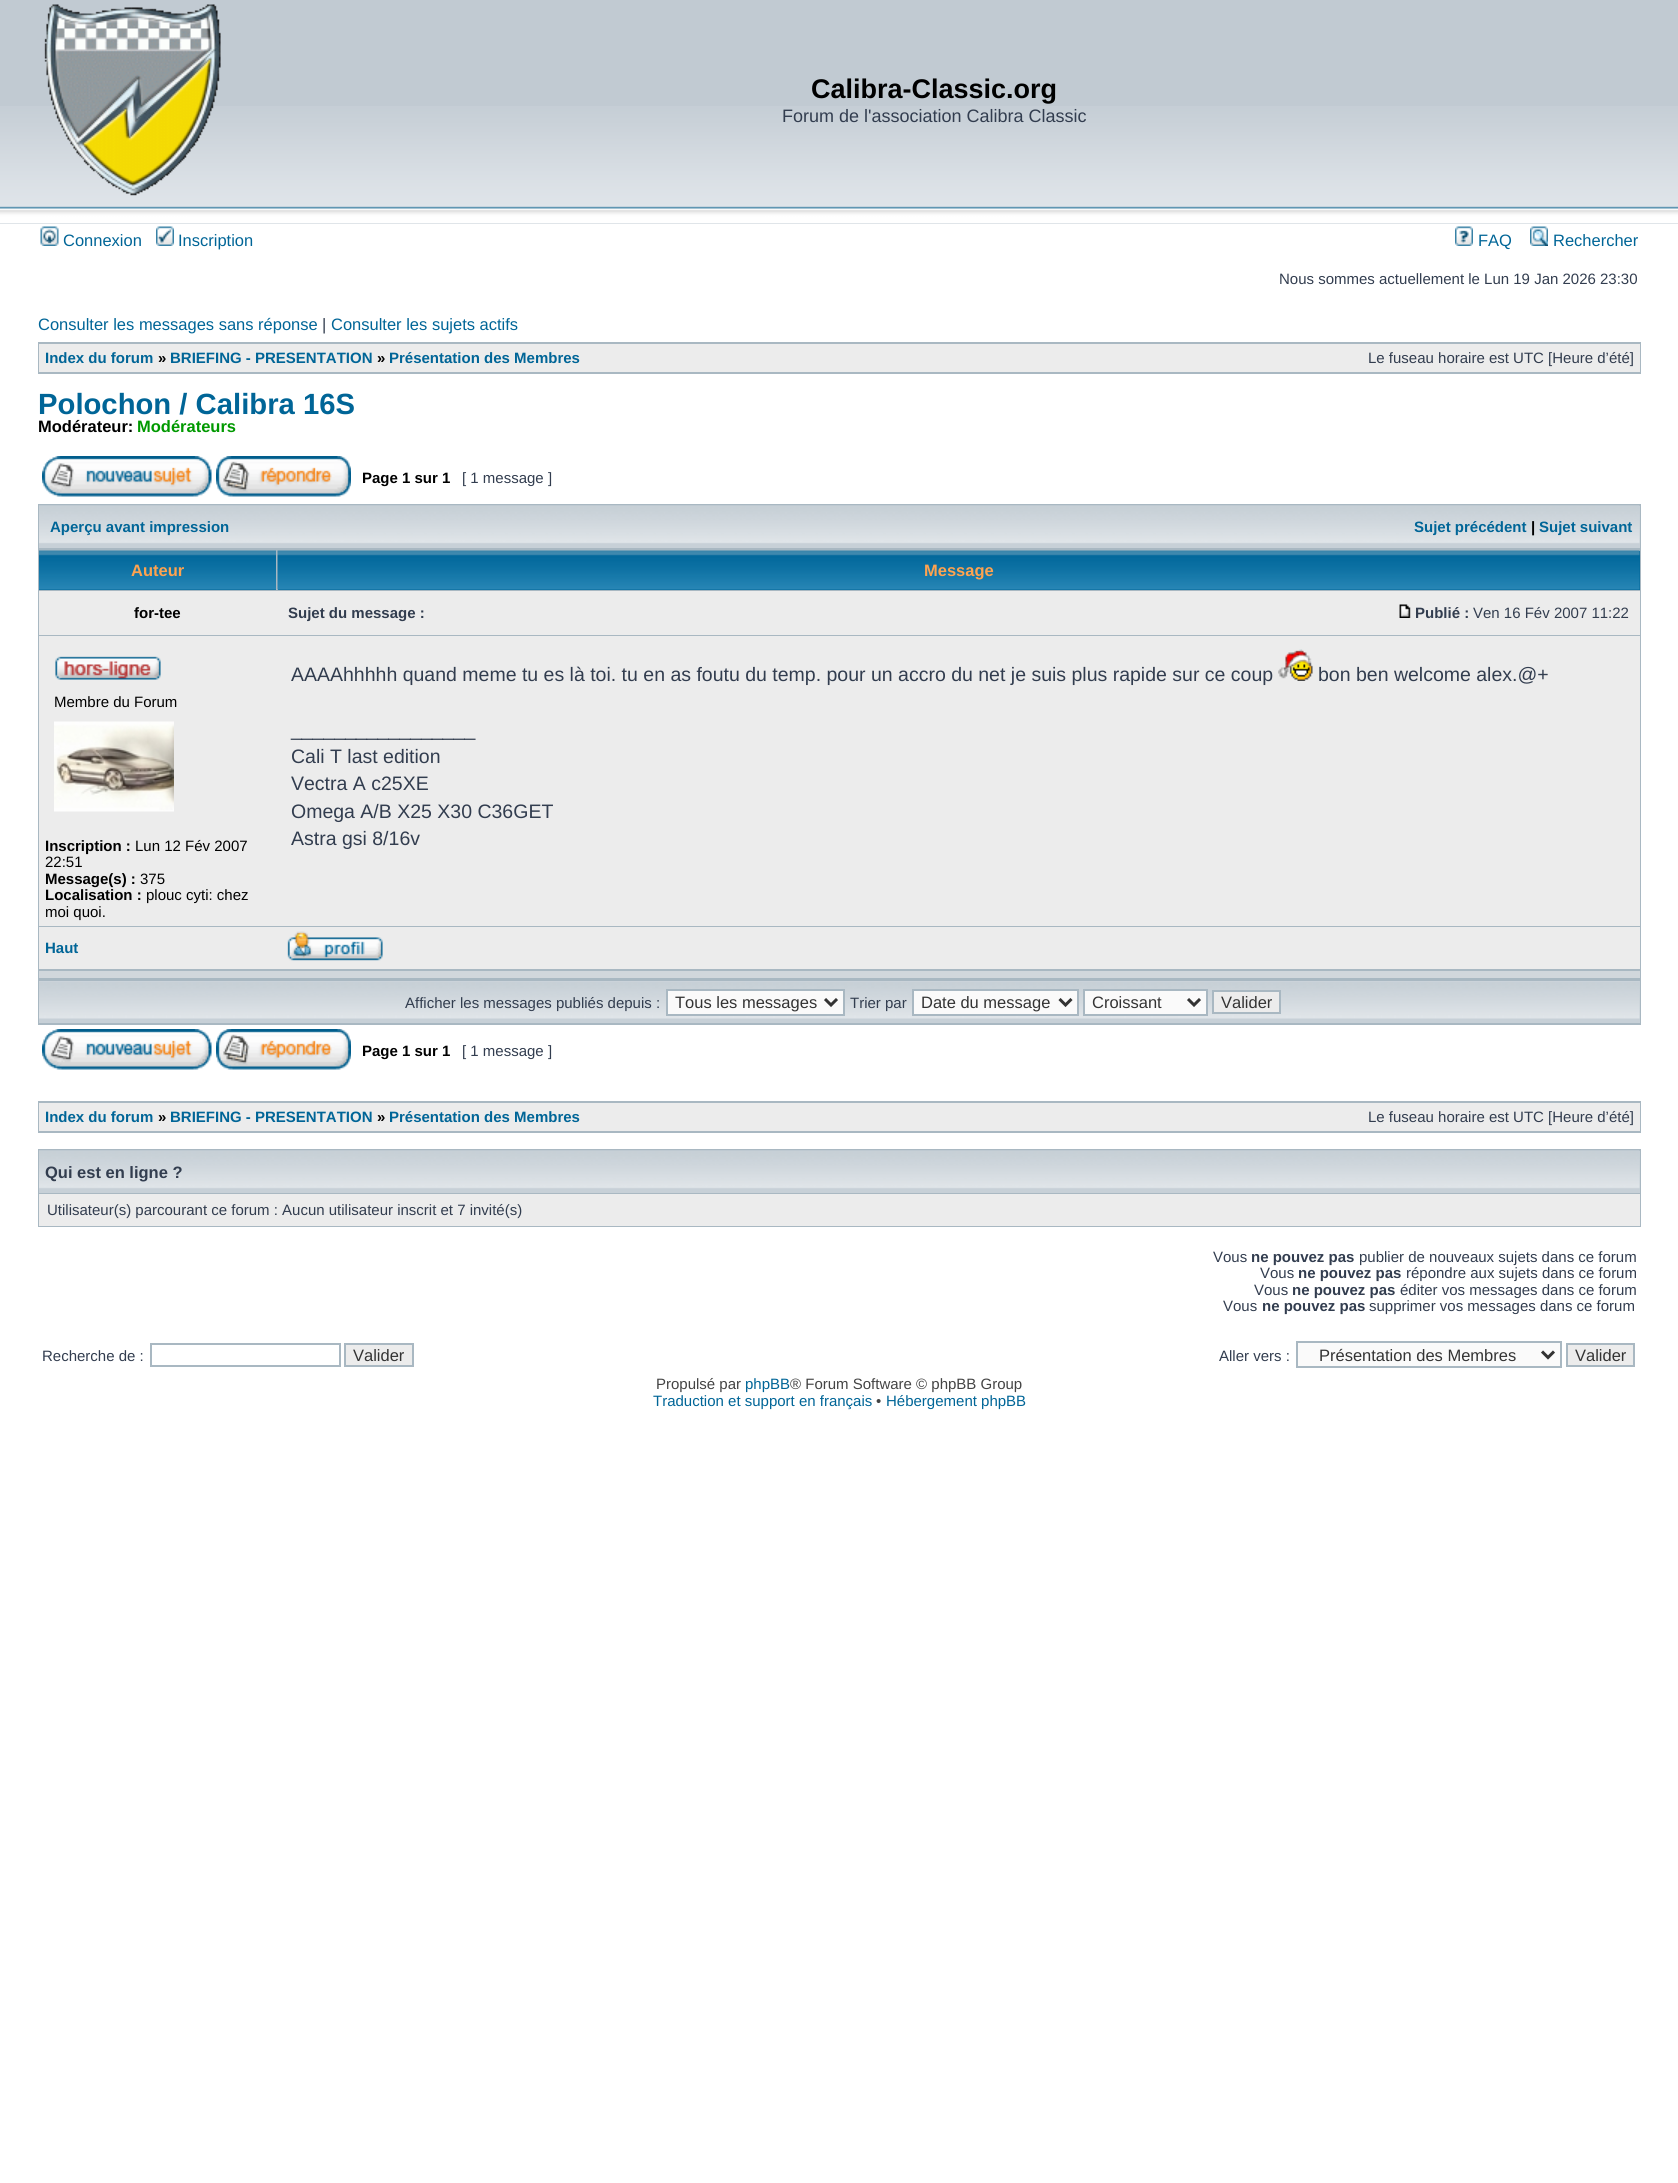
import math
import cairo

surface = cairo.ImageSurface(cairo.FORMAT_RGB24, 1678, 2183)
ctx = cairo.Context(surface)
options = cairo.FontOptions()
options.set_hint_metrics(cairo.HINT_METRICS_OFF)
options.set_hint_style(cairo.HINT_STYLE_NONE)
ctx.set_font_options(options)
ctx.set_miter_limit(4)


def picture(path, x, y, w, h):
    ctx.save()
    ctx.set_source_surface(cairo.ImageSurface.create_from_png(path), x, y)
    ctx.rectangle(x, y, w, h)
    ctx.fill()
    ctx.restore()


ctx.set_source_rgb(1, 1, 1)
ctx.paint()
ctx.set_source_rgb(0.757, 0.792, 0.824)
ctx.rectangle(0, 0, 1678, 224)
ctx.fill()
picture("img1.png", 0, 106, 1678, 118)
picture("img2.png", 44, 4, 177, 192)
ctx.select_font_face("Liberation Sans", cairo.FONT_SLANT_NORMAL, cairo.FONT_WEIGHT_BOLD)
ctx.set_font_size(27)
ctx.set_source_rgb(0, 0, 0)
ctx.move_to(811, 98)
ctx.show_text("Calibra-Classic.org")
ctx.select_font_face("Liberation Sans")
ctx.set_font_size(18)
ctx.set_source_rgb(0.196, 0.239, 0.31)
ctx.move_to(782, 122)
ctx.show_text("Forum de l'association Calibra Classic")
picture("img3.png", 40, 226, 19, 20)
ctx.set_font_size(16.5)
ctx.set_source_rgb(0, 0.396, 0.592)
ctx.move_to(63, 246)
ctx.show_text("Connexion")
picture("img4.png", 156, 226, 18, 20)
ctx.move_to(178, 246)
ctx.show_text("Inscription")
picture("img5.png", 1455, 226, 18, 20)
ctx.move_to(1478, 246)
ctx.show_text("FAQ")
picture("img6.png", 1530, 226, 18, 20)
ctx.move_to(1553, 246)
ctx.show_text("Rechercher")
ctx.set_font_size(15)
ctx.set_source_rgb(0.196, 0.239, 0.31)
ctx.move_to(1279, 284)
ctx.show_text("Nous sommes actuellement le Lun 19 Jan 2026 23:30")
ctx.set_font_size(16.5)
ctx.set_source_rgb(0, 0.396, 0.592)
ctx.move_to(38, 330)
ctx.show_text("Consulter les messages sans réponse")
ctx.set_source_rgb(0.196, 0.239, 0.31)
ctx.move_to(322, 330)
ctx.show_text("|")
ctx.set_source_rgb(0, 0.396, 0.592)
ctx.move_to(331, 330)
ctx.show_text("Consulter les sujets actifs")
ctx.set_source_rgb(0.663, 0.722, 0.761)
ctx.rectangle(38, 342, 1603, 32)
ctx.fill()
ctx.set_source_rgb(0.925, 0.925, 0.925)
ctx.rectangle(39, 344, 1601, 28)
ctx.fill()
ctx.select_font_face("Liberation Sans", cairo.FONT_SLANT_NORMAL, cairo.FONT_WEIGHT_BOLD)
ctx.set_font_size(15)
ctx.set_source_rgb(0, 0.396, 0.592)
ctx.move_to(45, 363)
ctx.show_text("Index du forum")
ctx.set_source_rgb(0, 0, 0)
ctx.move_to(158, 363)
ctx.show_text("»")
ctx.set_source_rgb(0, 0.396, 0.592)
ctx.move_to(170, 363)
ctx.show_text("BRIEFING - PRESENTATION")
ctx.set_source_rgb(0, 0, 0)
ctx.move_to(377, 363)
ctx.show_text("»")
ctx.set_source_rgb(0, 0.396, 0.592)
ctx.move_to(389, 363)
ctx.show_text("Présentation des Membres")
ctx.select_font_face("Liberation Sans")
ctx.set_source_rgb(0.196, 0.239, 0.31)
ctx.move_to(1368, 363)
ctx.show_text("Le fuseau horaire est UTC [Heure d’été]")
ctx.select_font_face("Liberation Sans", cairo.FONT_SLANT_NORMAL, cairo.FONT_WEIGHT_BOLD)
ctx.set_font_size(29.25)
ctx.set_source_rgb(0, 0.396, 0.592)
ctx.move_to(38, 414)
ctx.show_text("Polochon / Calibra 16S")
ctx.set_font_size(16.5)
ctx.set_source_rgb(0, 0, 0)
ctx.move_to(38, 432)
ctx.show_text("Modérateur:")
ctx.set_source_rgb(0, 0.6, 0)
ctx.move_to(137, 432)
ctx.show_text("Modérateurs")
picture("img7.png", 42, 456, 170, 41)
picture("img8.png", 216, 456, 135, 41)
ctx.set_font_size(15)
ctx.set_source_rgb(0, 0, 0)
ctx.move_to(362, 483)
ctx.show_text("Page 1 sur 1")
ctx.select_font_face("Liberation Sans")
ctx.set_source_rgb(0.196, 0.239, 0.31)
ctx.move_to(462, 483)
ctx.show_text("[ 1 message ]")
ctx.set_source_rgb(0.663, 0.722, 0.761)
ctx.rectangle(38, 504, 1603, 521)
ctx.fill()
ctx.set_source_rgb(0.78, 0.816, 0.843)
ctx.rectangle(39, 506, 1601, 42)
ctx.fill()
picture("img9.png", 39, 505, 1601, 39)
ctx.select_font_face("Liberation Sans", cairo.FONT_SLANT_NORMAL, cairo.FONT_WEIGHT_BOLD)
ctx.set_source_rgb(0, 0.396, 0.592)
ctx.move_to(50, 532)
ctx.show_text("Aperçu avant impression")
ctx.move_to(1414, 532)
ctx.show_text("Sujet précédent")
ctx.set_source_rgb(0, 0, 0)
ctx.move_to(1531, 532)
ctx.show_text("|")
ctx.set_source_rgb(0, 0.396, 0.592)
ctx.move_to(1539, 532)
ctx.show_text("Sujet suivant")
ctx.set_source_rgb(0, 0.4, 0.6)
ctx.rectangle(39, 589, 237, 1)
ctx.fill()
picture("img10.png", 39, 550, 237, 40)
ctx.set_font_size(16.5)
ctx.set_source_rgb(1, 0.639, 0.31)
ctx.move_to(131, 576)
ctx.show_text("Auteur")
ctx.set_source_rgb(0, 0.4, 0.6)
ctx.rectangle(278, 551, 1362, 39)
ctx.fill()
picture("img11.png", 277, 550, 1363, 40)
ctx.set_source_rgb(1, 0.639, 0.31)
ctx.move_to(924, 576)
ctx.show_text("Message")
ctx.set_source_rgb(0.925, 0.925, 0.925)
ctx.rectangle(39, 591, 1601, 44)
ctx.fill()
ctx.set_font_size(15)
ctx.set_source_rgb(0, 0, 0)
ctx.move_to(134, 618)
ctx.show_text("for-tee")
ctx.set_source_rgb(0.196, 0.239, 0.31)
ctx.move_to(288, 618)
ctx.show_text("Sujet du message :")
picture("img12.png", 1399, 604, 12, 14)
ctx.move_to(1415, 618)
ctx.show_text("Publié :")
ctx.select_font_face("Liberation Sans")
ctx.move_to(1473, 618)
ctx.show_text("Ven 16 Fév 2007 11:22")
ctx.set_source_rgb(0.925, 0.925, 0.925)
ctx.rectangle(39, 636, 1601, 290)
ctx.fill()
picture("img13.png", 55, 656, 106, 24)
ctx.set_source_rgb(0, 0, 0)
ctx.move_to(54, 707)
ctx.show_text("Membre du Forum")
picture("img14.png", 54, 721, 120, 91)
ctx.select_font_face("Liberation Sans", cairo.FONT_SLANT_NORMAL, cairo.FONT_WEIGHT_BOLD)
ctx.move_to(45, 851)
ctx.show_text("Inscription :")
ctx.select_font_face("Liberation Sans")
ctx.move_to(135, 851)
ctx.show_text("Lun 12 Fév 2007")
ctx.move_to(45, 867)
ctx.show_text("22:51")
ctx.select_font_face("Liberation Sans", cairo.FONT_SLANT_NORMAL, cairo.FONT_WEIGHT_BOLD)
ctx.move_to(45, 884)
ctx.show_text("Message(s) :")
ctx.select_font_face("Liberation Sans")
ctx.move_to(140, 884)
ctx.show_text("375")
ctx.select_font_face("Liberation Sans", cairo.FONT_SLANT_NORMAL, cairo.FONT_WEIGHT_BOLD)
ctx.move_to(45, 900)
ctx.show_text("Localisation :")
ctx.select_font_face("Liberation Sans")
ctx.move_to(146, 900)
ctx.show_text("plouc cyti: chez")
ctx.move_to(45, 917)
ctx.show_text("moi quoi.")
ctx.set_font_size(19.5)
ctx.set_source_rgb(0.196, 0.239, 0.31)
ctx.move_to(291, 681)
ctx.show_text("AAAAhhhhh quand meme tu es là toi. tu en as foutu du temp. pour un accro du net je suis plus rapide sur ce coup")
picture("img15.png", 1278, 649, 35, 32)
ctx.move_to(1318, 681)
ctx.show_text("bon ben welcome alex.@+")
ctx.move_to(291, 736)
ctx.show_text("_________________")
ctx.move_to(291, 763)
ctx.show_text("Cali T last edition")
ctx.move_to(291, 790)
ctx.show_text("Vectra A c25XE")
ctx.move_to(291, 818)
ctx.show_text("Omega A/B X25 X30 C36GET")
ctx.move_to(291, 845)
ctx.show_text("Astra gsi 8/16v")
ctx.set_source_rgb(0.925, 0.925, 0.925)
ctx.rectangle(39, 927, 1601, 42)
ctx.fill()
ctx.select_font_face("Liberation Sans", cairo.FONT_SLANT_NORMAL, cairo.FONT_WEIGHT_BOLD)
ctx.set_font_size(15)
ctx.set_source_rgb(0, 0.396, 0.592)
ctx.move_to(45, 953)
ctx.show_text("Haut")
picture("img16.png", 287, 931, 96, 30)
ctx.set_source_rgb(0.82, 0.843, 0.863)
ctx.rectangle(39, 971, 1601, 7)
ctx.fill()
ctx.set_source_rgb(0.78, 0.816, 0.843)
ctx.rectangle(39, 981, 1601, 42)
ctx.fill()
picture("img17.png", 39, 981, 1601, 38)
ctx.select_font_face("Liberation Sans")
ctx.set_source_rgb(0.196, 0.239, 0.31)
ctx.move_to(405, 1008)
ctx.show_text("Afficher les messages publiés depuis :")
ctx.set_source_rgb(0.98, 0.98, 0.98)
ctx.rectangle(667, 990, 177, 25)
ctx.fill_preserve()
ctx.set_source_rgb(0.663, 0.722, 0.761)
ctx.stroke()
ctx.new_path()
ctx.move_to(825, 999)
ctx.line_to(831, 1005)
ctx.line_to(837, 999)
ctx.set_source_rgb(0.2, 0.2, 0.2)
ctx.set_line_width(3)
ctx.stroke()
ctx.set_font_size(16.5)
ctx.move_to(675, 1008)
ctx.show_text("Tous les messages")
ctx.set_font_size(15)
ctx.set_source_rgb(0.196, 0.239, 0.31)
ctx.move_to(850, 1008)
ctx.show_text("Trier par")
ctx.set_source_rgb(0.98, 0.98, 0.98)
ctx.rectangle(913, 990, 165, 25)
ctx.fill_preserve()
ctx.set_source_rgb(0.663, 0.722, 0.761)
ctx.set_line_width(2)
ctx.stroke()
ctx.new_path()
ctx.move_to(1059.5, 999)
ctx.line_to(1065.5, 1005)
ctx.line_to(1071.5, 999)
ctx.set_source_rgb(0.2, 0.2, 0.2)
ctx.set_line_width(3)
ctx.stroke()
ctx.set_font_size(16.5)
ctx.move_to(921, 1008)
ctx.show_text("Date du message")
ctx.set_source_rgb(0.98, 0.98, 0.98)
ctx.rectangle(1084, 990, 123, 25)
ctx.fill_preserve()
ctx.set_source_rgb(0.663, 0.722, 0.761)
ctx.set_line_width(2)
ctx.stroke()
ctx.new_path()
ctx.move_to(1188, 999)
ctx.line_to(1194, 1005)
ctx.line_to(1200, 999)
ctx.set_source_rgb(0.2, 0.2, 0.2)
ctx.set_line_width(3)
ctx.stroke()
ctx.move_to(1092, 1008)
ctx.show_text("Croissant")
ctx.set_source_rgb(0.925, 0.925, 0.925)
ctx.rectangle(1213, 991, 67, 22)
ctx.fill_preserve()
ctx.set_source_rgb(0.663, 0.722, 0.761)
ctx.set_line_width(2)
ctx.stroke()
ctx.set_source_rgb(0.2, 0.2, 0.2)
ctx.move_to(1221, 1008)
ctx.show_text("Valider")
picture("img7.png", 42, 1029, 170, 41)
picture("img8.png", 216, 1029, 135, 41)
ctx.select_font_face("Liberation Sans", cairo.FONT_SLANT_NORMAL, cairo.FONT_WEIGHT_BOLD)
ctx.set_font_size(15)
ctx.set_source_rgb(0, 0, 0)
ctx.move_to(362, 1056)
ctx.show_text("Page 1 sur 1")
ctx.select_font_face("Liberation Sans")
ctx.set_source_rgb(0.196, 0.239, 0.31)
ctx.move_to(462, 1056)
ctx.show_text("[ 1 message ]")
ctx.set_source_rgb(0.663, 0.722, 0.761)
ctx.rectangle(38, 1101, 1603, 32)
ctx.fill()
ctx.set_source_rgb(0.925, 0.925, 0.925)
ctx.rectangle(39, 1103, 1601, 28)
ctx.fill()
ctx.select_font_face("Liberation Sans", cairo.FONT_SLANT_NORMAL, cairo.FONT_WEIGHT_BOLD)
ctx.set_source_rgb(0, 0.396, 0.592)
ctx.move_to(45, 1122)
ctx.show_text("Index du forum")
ctx.set_source_rgb(0, 0, 0)
ctx.move_to(158, 1122)
ctx.show_text("»")
ctx.set_source_rgb(0, 0.396, 0.592)
ctx.move_to(170, 1122)
ctx.show_text("BRIEFING - PRESENTATION")
ctx.set_source_rgb(0, 0, 0)
ctx.move_to(377, 1122)
ctx.show_text("»")
ctx.set_source_rgb(0, 0.396, 0.592)
ctx.move_to(389, 1122)
ctx.show_text("Présentation des Membres")
ctx.select_font_face("Liberation Sans")
ctx.set_source_rgb(0.196, 0.239, 0.31)
ctx.move_to(1368, 1122)
ctx.show_text("Le fuseau horaire est UTC [Heure d’été]")
ctx.set_source_rgb(0.663, 0.722, 0.761)
ctx.rectangle(38, 1149, 1603, 78)
ctx.fill()
ctx.set_source_rgb(0.78, 0.816, 0.843)
ctx.rectangle(39, 1151, 1601, 42)
ctx.fill()
picture("img9.png", 39, 1150, 1601, 39)
ctx.select_font_face("Liberation Sans", cairo.FONT_SLANT_NORMAL, cairo.FONT_WEIGHT_BOLD)
ctx.set_font_size(16.5)
ctx.set_source_rgb(0.196, 0.239, 0.31)
ctx.move_to(45, 1178)
ctx.show_text("Qui est en ligne ?")
ctx.set_source_rgb(0.925, 0.925, 0.925)
ctx.rectangle(39, 1194, 1601, 32)
ctx.fill()
ctx.select_font_face("Liberation Sans")
ctx.set_font_size(15)
ctx.set_source_rgb(0.196, 0.239, 0.31)
ctx.move_to(47, 1215)
ctx.show_text("Utilisateur(s) parcourant ce forum : Aucun utilisateur inscrit et 7 invité(s)")
ctx.move_to(1213, 1262)
ctx.show_text("Vous")
ctx.select_font_face("Liberation Sans", cairo.FONT_SLANT_NORMAL, cairo.FONT_WEIGHT_BOLD)
ctx.move_to(1251, 1262)
ctx.show_text("ne pouvez pas")
ctx.select_font_face("Liberation Sans")
ctx.move_to(1359, 1262)
ctx.show_text("publier de nouveaux sujets dans ce forum")
ctx.move_to(1260, 1278)
ctx.show_text("Vous")
ctx.select_font_face("Liberation Sans", cairo.FONT_SLANT_NORMAL, cairo.FONT_WEIGHT_BOLD)
ctx.move_to(1298, 1278)
ctx.show_text("ne pouvez pas")
ctx.select_font_face("Liberation Sans")
ctx.move_to(1406, 1278)
ctx.show_text("répondre aux sujets dans ce forum")
ctx.move_to(1254, 1295)
ctx.show_text("Vous")
ctx.select_font_face("Liberation Sans", cairo.FONT_SLANT_NORMAL, cairo.FONT_WEIGHT_BOLD)
ctx.move_to(1292, 1295)
ctx.show_text("ne pouvez pas")
ctx.select_font_face("Liberation Sans")
ctx.move_to(1400, 1295)
ctx.show_text("éditer vos messages dans ce forum")
ctx.move_to(1223, 1311)
ctx.show_text("Vous")
ctx.select_font_face("Liberation Sans", cairo.FONT_SLANT_NORMAL, cairo.FONT_WEIGHT_BOLD)
ctx.move_to(1262, 1311)
ctx.show_text("ne pouvez pas")
ctx.select_font_face("Liberation Sans")
ctx.move_to(1369, 1311)
ctx.show_text("supprimer vos messages dans ce forum")
ctx.move_to(42, 1361)
ctx.show_text("Recherche de :")
ctx.rectangle(151, 1344, 189, 22)
ctx.set_source_rgb(0.663, 0.722, 0.761)
ctx.stroke()
ctx.set_source_rgb(0.925, 0.925, 0.925)
ctx.rectangle(345, 1344, 68, 22)
ctx.fill_preserve()
ctx.set_source_rgb(0.663, 0.722, 0.761)
ctx.stroke()
ctx.set_font_size(16.5)
ctx.set_source_rgb(0.2, 0.2, 0.2)
ctx.move_to(353, 1361)
ctx.show_text("Valider")
ctx.set_font_size(15)
ctx.set_source_rgb(0.196, 0.239, 0.31)
ctx.move_to(1219, 1361)
ctx.show_text("Aller vers :")
ctx.set_source_rgb(0.98, 0.98, 0.98)
ctx.rectangle(1297, 1342, 264, 25)
ctx.fill_preserve()
ctx.set_source_rgb(0.663, 0.722, 0.761)
ctx.stroke()
ctx.new_path()
ctx.move_to(1542, 1351.5)
ctx.line_to(1548, 1357.5)
ctx.line_to(1554, 1351.5)
ctx.set_source_rgb(0.2, 0.2, 0.2)
ctx.set_line_width(3)
ctx.stroke()
ctx.set_font_size(16.5)
ctx.move_to(1319, 1361)
ctx.show_text("Présentation des Membres")
ctx.set_source_rgb(0.925, 0.925, 0.925)
ctx.rectangle(1567, 1344, 67, 22)
ctx.fill_preserve()
ctx.set_source_rgb(0.663, 0.722, 0.761)
ctx.set_line_width(2)
ctx.stroke()
ctx.set_source_rgb(0.2, 0.2, 0.2)
ctx.move_to(1575, 1361)
ctx.show_text("Valider")
ctx.set_font_size(15)
ctx.set_source_rgb(0.267, 0.267, 0.267)
ctx.move_to(656, 1389)
ctx.show_text("Propulsé par")
ctx.set_source_rgb(0, 0.396, 0.592)
ctx.move_to(745, 1389)
ctx.show_text("phpBB")
ctx.set_source_rgb(0.267, 0.267, 0.267)
ctx.move_to(790, 1389)
ctx.show_text("® Forum Software © phpBB Group")
ctx.set_source_rgb(0, 0.396, 0.592)
ctx.move_to(653, 1406)
ctx.show_text("Traduction et support en français")
ctx.set_source_rgb(0.267, 0.267, 0.267)
ctx.move_to(876, 1406)
ctx.show_text("•")
ctx.set_source_rgb(0, 0.396, 0.592)
ctx.move_to(886, 1406)
ctx.show_text("Hébergement phpBB")
surface.write_to_png("page.png")
